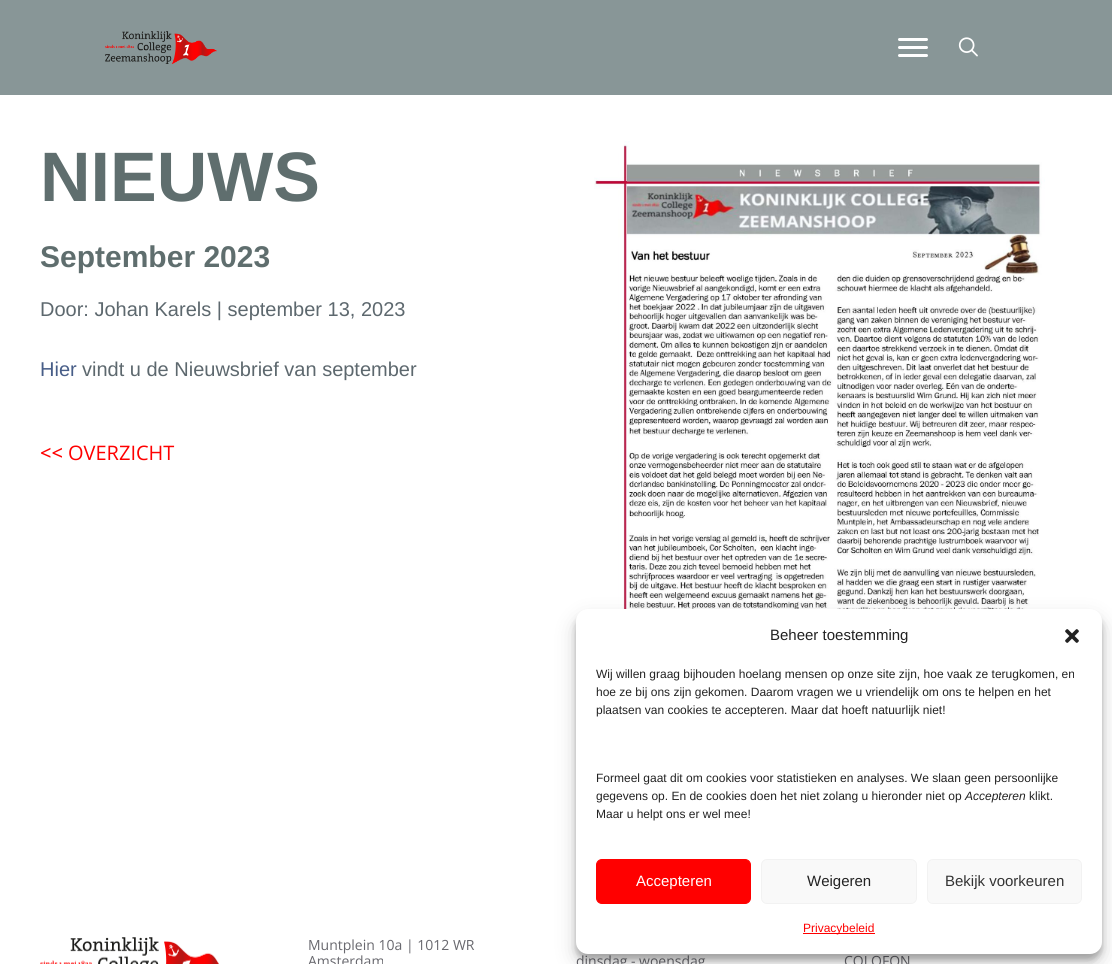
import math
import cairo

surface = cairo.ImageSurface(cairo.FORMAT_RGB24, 1112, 964)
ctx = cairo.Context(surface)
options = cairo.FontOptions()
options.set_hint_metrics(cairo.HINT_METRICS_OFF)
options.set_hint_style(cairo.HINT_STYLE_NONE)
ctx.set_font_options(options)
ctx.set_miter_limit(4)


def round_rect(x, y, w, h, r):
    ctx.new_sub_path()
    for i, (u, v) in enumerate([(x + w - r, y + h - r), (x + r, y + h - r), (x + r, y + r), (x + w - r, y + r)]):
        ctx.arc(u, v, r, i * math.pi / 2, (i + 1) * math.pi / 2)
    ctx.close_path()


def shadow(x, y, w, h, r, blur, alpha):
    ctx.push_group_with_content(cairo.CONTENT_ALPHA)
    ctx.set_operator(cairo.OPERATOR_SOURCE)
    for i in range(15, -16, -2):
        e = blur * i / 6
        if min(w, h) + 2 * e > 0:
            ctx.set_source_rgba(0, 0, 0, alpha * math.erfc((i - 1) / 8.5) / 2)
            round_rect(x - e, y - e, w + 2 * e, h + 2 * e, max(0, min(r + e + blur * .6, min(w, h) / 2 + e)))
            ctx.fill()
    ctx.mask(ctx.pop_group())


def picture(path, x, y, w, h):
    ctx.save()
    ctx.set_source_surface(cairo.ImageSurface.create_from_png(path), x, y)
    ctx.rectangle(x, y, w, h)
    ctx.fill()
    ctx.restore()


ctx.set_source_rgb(1, 1, 1)
ctx.paint()
ctx.set_source_rgb(0.533, 0.588, 0.592)
ctx.rectangle(0, 0, 1112, 95)
ctx.fill()
picture("img1.png", 105, 31, 112, 33)
ctx.set_source_rgb(1, 1, 1)
round_rect(898, 46, 30, 3, 1.5)
ctx.fill()
round_rect(898, 38, 30, 3, 1.5)
ctx.fill()
round_rect(898, 54, 30, 3, 1.5)
ctx.fill()
picture("img2.png", 958, 37, 20, 20)
ctx.select_font_face("Liberation Sans", cairo.FONT_SLANT_NORMAL, cairo.FONT_WEIGHT_BOLD)
ctx.set_font_size(70)
ctx.set_source_rgb(0.373, 0.431, 0.431)
ctx.move_to(40, 201)
ctx.show_text("NIEUWS")
ctx.set_font_size(30)
ctx.move_to(40, 267)
ctx.show_text("September 2023")
ctx.select_font_face("Liberation Sans")
ctx.set_font_size(20)
ctx.set_source_rgb(0.365, 0.408, 0.431)
ctx.move_to(40, 316)
ctx.show_text("Door: Johan Karels | september 13, 2023")
ctx.set_source_rgb(0.282, 0.369, 0.533)
ctx.move_to(40, 376)
ctx.show_text("Hier")
ctx.set_source_rgb(0.365, 0.408, 0.431)
ctx.move_to(82, 376)
ctx.show_text("vindt u de Nieuwsbrief van september")
ctx.select_font_face("Open Sans Medium")
ctx.set_source_rgb(1, 0, 0)
ctx.move_to(40, 460)
ctx.show_text("<<")
ctx.select_font_face("Open Sans")
ctx.move_to(68, 460)
ctx.show_text("OVERZICHT")
picture("img3.png", 594, 141, 451, 468)
picture("img4.png", 40, 937, 179, 27)
ctx.set_font_size(14)
ctx.set_source_rgb(0.408, 0.408, 0.431)
ctx.move_to(308, 950)
ctx.show_text("Muntplein 10a | 1012 WR")
ctx.move_to(308, 966)
ctx.show_text("Amsterdam")
ctx.move_to(576, 966)
ctx.show_text("dinsdag - woensdag")
ctx.move_to(844, 966)
ctx.show_text("COLOFON")
ctx.set_source_rgb(0, 0, 0)
shadow(576, 615, 526, 345, 12, 3, 0.23)
shadow(576, 619, 526, 345, 12, 10, 0.19)
ctx.set_source_rgb(1, 1, 1)
round_rect(576, 609, 526, 345, 12)
ctx.fill()
ctx.select_font_face("Liberation Sans")
ctx.set_font_size(15)
ctx.set_source_rgb(0.133, 0.133, 0.133)
ctx.move_to(770, 640)
ctx.show_text("Beheer toestemming")
picture("img5.png", 1065, 629, 14, 14)
ctx.set_font_size(12)
ctx.move_to(596, 678)
ctx.show_text("Wij willen graag bijhouden hoelang mensen op onze site zijn, hoe vaak ze terugkomen, en")
ctx.move_to(596, 696)
ctx.show_text("hoe ze bij ons zijn gekomen. Daarom vragen we u vriendelijk om ons te helpen en het")
ctx.move_to(596, 714)
ctx.show_text("plaatsen van cookies te accepteren. Maar dat hoeft natuurlijk niet!")
ctx.move_to(596, 782)
ctx.show_text("Formeel gaat dit om cookies voor statistieken en analyses. We slaan geen persoonlijke")
ctx.move_to(596, 800)
ctx.show_text("gegevens op. En de cookies doen het niet zolang u hieronder niet op")
ctx.select_font_face("Liberation Sans", cairo.FONT_SLANT_ITALIC)
ctx.move_to(965, 800)
ctx.show_text("Accepteren")
ctx.select_font_face("Liberation Sans")
ctx.move_to(1029, 800)
ctx.show_text("klikt.")
ctx.move_to(596, 818)
ctx.show_text("Maar u helpt ons er wel mee!")
ctx.set_source_rgb(1, 0, 0)
round_rect(596.5, 859.5, 154, 44, 5.5)
ctx.fill_preserve()
ctx.set_line_width(1)
ctx.stroke()
ctx.set_font_size(15)
ctx.set_source_rgb(1, 1, 1)
ctx.move_to(636, 886)
ctx.show_text("Accepteren")
ctx.set_source_rgb(0.976, 0.976, 0.976)
round_rect(761.5, 859.5, 155, 44, 5.5)
ctx.fill_preserve()
ctx.set_source_rgb(0.949, 0.949, 0.949)
ctx.stroke()
ctx.set_source_rgb(0.133, 0.133, 0.133)
ctx.move_to(807, 886)
ctx.show_text("Weigeren")
ctx.set_source_rgb(0.976, 0.976, 0.976)
round_rect(927.5, 859.5, 154, 44, 5.5)
ctx.fill_preserve()
ctx.set_source_rgb(0.949, 0.949, 0.949)
ctx.stroke()
ctx.set_source_rgb(0.2, 0.2, 0.2)
ctx.move_to(945, 886)
ctx.show_text("Bekijk voorkeuren")
ctx.set_source_rgb(1, 0, 0)
ctx.rectangle(803, 933, 72, 1)
ctx.fill()
ctx.set_font_size(12)
ctx.move_to(803, 932)
ctx.show_text("Privacybeleid")
surface.write_to_png("page.png")
